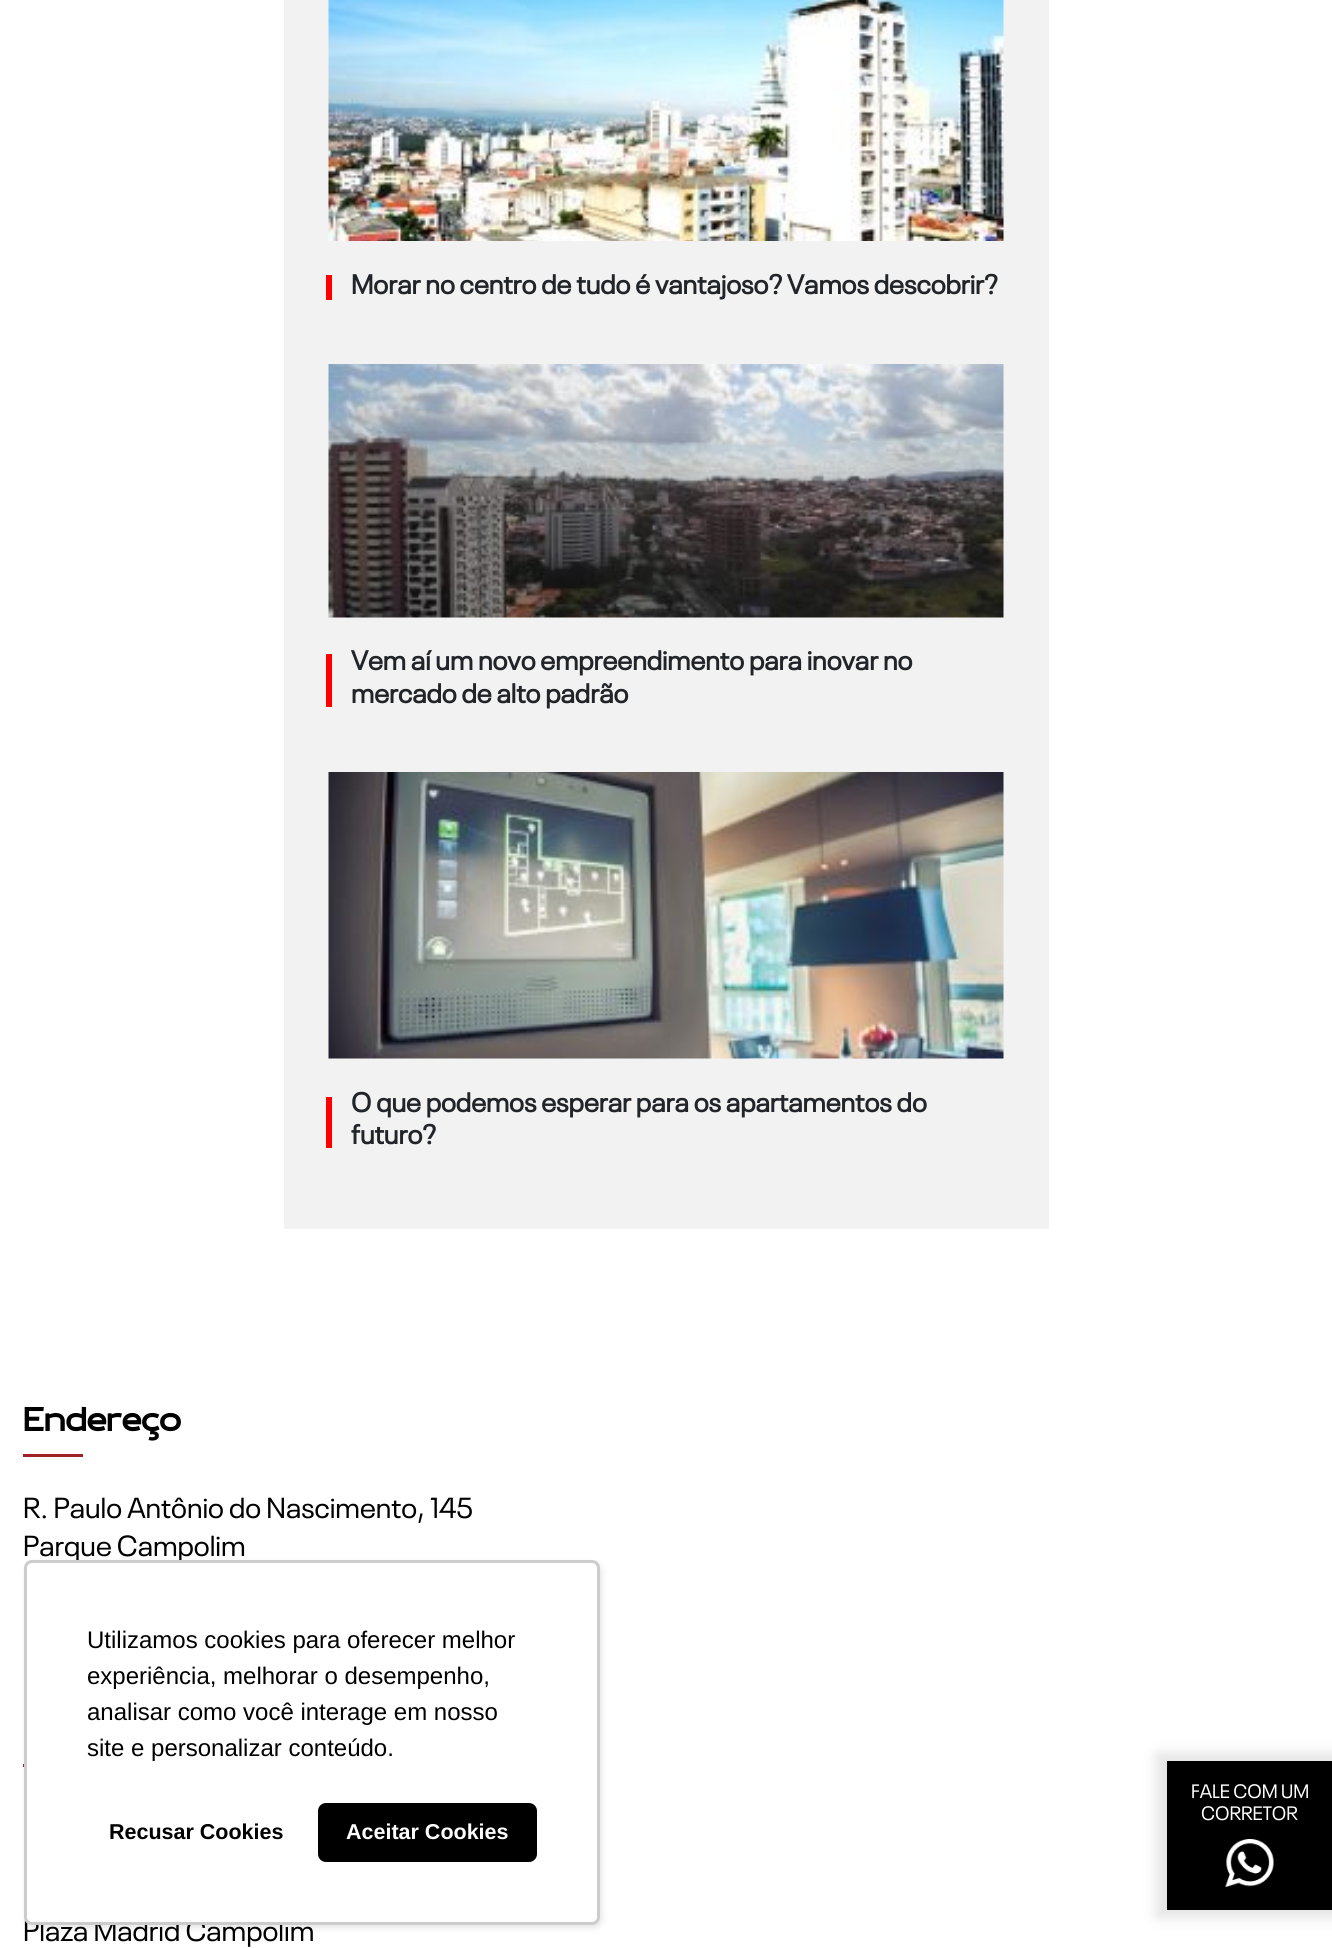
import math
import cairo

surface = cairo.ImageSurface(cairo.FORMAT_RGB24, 1332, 1948)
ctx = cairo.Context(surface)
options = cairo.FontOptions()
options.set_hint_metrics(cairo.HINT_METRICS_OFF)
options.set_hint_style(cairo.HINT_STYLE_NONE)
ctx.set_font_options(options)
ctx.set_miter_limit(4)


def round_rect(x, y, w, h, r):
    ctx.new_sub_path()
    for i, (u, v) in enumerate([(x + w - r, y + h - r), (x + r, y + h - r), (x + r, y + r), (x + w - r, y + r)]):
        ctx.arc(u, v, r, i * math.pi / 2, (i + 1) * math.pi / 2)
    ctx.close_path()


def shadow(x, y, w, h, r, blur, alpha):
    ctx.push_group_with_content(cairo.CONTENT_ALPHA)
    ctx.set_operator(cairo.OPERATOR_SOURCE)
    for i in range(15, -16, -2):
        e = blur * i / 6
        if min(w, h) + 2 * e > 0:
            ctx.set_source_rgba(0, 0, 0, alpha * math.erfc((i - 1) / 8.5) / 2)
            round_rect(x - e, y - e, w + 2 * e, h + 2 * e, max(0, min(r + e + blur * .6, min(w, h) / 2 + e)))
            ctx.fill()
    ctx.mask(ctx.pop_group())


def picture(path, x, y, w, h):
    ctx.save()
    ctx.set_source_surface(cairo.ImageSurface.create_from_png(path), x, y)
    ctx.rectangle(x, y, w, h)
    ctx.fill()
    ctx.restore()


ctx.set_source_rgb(1, 1, 1)
ctx.paint()
ctx.set_source_rgb(0.949, 0.949, 0.949)
ctx.rectangle(284, 0, 765, 1229)
ctx.fill()
picture("img1.png", 328, 0, 676, 241)
ctx.set_source_rgb(1, 0, 0)
ctx.rectangle(326, 275, 6, 25)
ctx.fill()
ctx.select_font_face("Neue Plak", cairo.FONT_SLANT_NORMAL, cairo.FONT_WEIGHT_BOLD)
ctx.set_font_size(27)
ctx.set_source_rgb(0.129, 0.145, 0.161)
ctx.move_to(351, 294)
ctx.show_text("Morar no centro de tudo é vantajoso? Vamos descobrir?")
picture("img2.png", 328, 364, 676, 254)
ctx.set_source_rgb(1, 0, 0)
ctx.rectangle(326, 654, 6, 53)
ctx.fill()
ctx.set_source_rgb(0.129, 0.145, 0.161)
ctx.move_to(351, 670)
ctx.show_text("Vem aí um novo empreendimento para inovar no")
ctx.move_to(351, 703)
ctx.show_text("mercado de alto padrão")
picture("img3.png", 328, 772, 676, 287)
ctx.set_source_rgb(1, 0, 0)
ctx.rectangle(326, 1097, 6, 51)
ctx.fill()
ctx.set_source_rgb(0.129, 0.145, 0.161)
ctx.move_to(351, 1112)
ctx.show_text("O que podemos esperar para os apartamentos do")
ctx.move_to(351, 1144)
ctx.show_text("futuro?")
ctx.select_font_face("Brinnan", cairo.FONT_SLANT_NORMAL, cairo.FONT_WEIGHT_BOLD)
ctx.set_font_size(33.5)
ctx.set_source_rgb(0, 0, 0)
ctx.move_to(23, 1431)
ctx.show_text("Endereço")
ctx.set_source_rgb(0.624, 0.137, 0.145)
ctx.rectangle(23, 1454, 60, 3)
ctx.fill()
ctx.select_font_face("Neue Plak")
ctx.set_font_size(28.75)
ctx.set_source_rgb(0, 0, 0)
ctx.move_to(23, 1518)
ctx.show_text("R. Paulo Antônio do Nascimento, 145")
ctx.move_to(23, 1556)
ctx.show_text("Parque Campolim")
ctx.set_source_rgb(0.624, 0.137, 0.145)
ctx.rectangle(23, 1764, 1, 3)
ctx.fill()
ctx.set_source_rgb(0, 0, 0)
ctx.move_to(23, 1941)
ctx.show_text("Plaza Madrid Campolim")
ctx.set_source_rgb(0, 0, 0)
shadow(26, 1563, 576, 365, 8, 3, 0.1)
ctx.set_source_rgb(1, 1, 1)
round_rect(24, 1560, 576, 365, 8)
ctx.fill()
round_rect(25.5, 1561.5, 573, 362, 6.5)
ctx.set_source_rgba(0, 0, 0, 0.2)
ctx.set_line_width(3)
ctx.stroke()
ctx.select_font_face("Liberation Sans")
ctx.set_font_size(24)
ctx.set_source_rgb(0, 0, 0)
ctx.move_to(87, 1648)
ctx.show_text("Utilizamos cookies para oferecer melhor")
ctx.move_to(87, 1684)
ctx.show_text("experiência, melhorar o desempenho,")
ctx.move_to(87, 1720)
ctx.show_text("analisar como você interage em nosso")
ctx.move_to(87, 1756)
ctx.show_text("site e personalizar conteúdo.")
ctx.select_font_face("Liberation Sans", cairo.FONT_SLANT_NORMAL, cairo.FONT_WEIGHT_BOLD)
ctx.set_font_size(21.5)
ctx.move_to(109, 1839)
ctx.show_text("Recusar Cookies")
round_rect(318, 1803, 219, 59, 8)
ctx.fill()
ctx.set_source_rgb(1, 1, 1)
ctx.move_to(346, 1839)
ctx.show_text("Aceitar Cookies")
ctx.set_source_rgb(0, 0, 0)
shadow(1157, 1754, 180, 163, 0, 7.5, 0.12)
ctx.set_source_rgb(0, 0, 0)
ctx.rectangle(1167, 1761, 165, 149)
ctx.fill()
ctx.select_font_face("Neue Plak")
ctx.set_font_size(19.25)
ctx.set_source_rgb(1, 1, 1)
ctx.move_to(1191, 1798)
ctx.show_text("FALE COM UM")
ctx.move_to(1201, 1820)
ctx.show_text("CORRETOR")
picture("img4.png", 1225, 1839, 49, 48)
surface.write_to_png("page.png")
